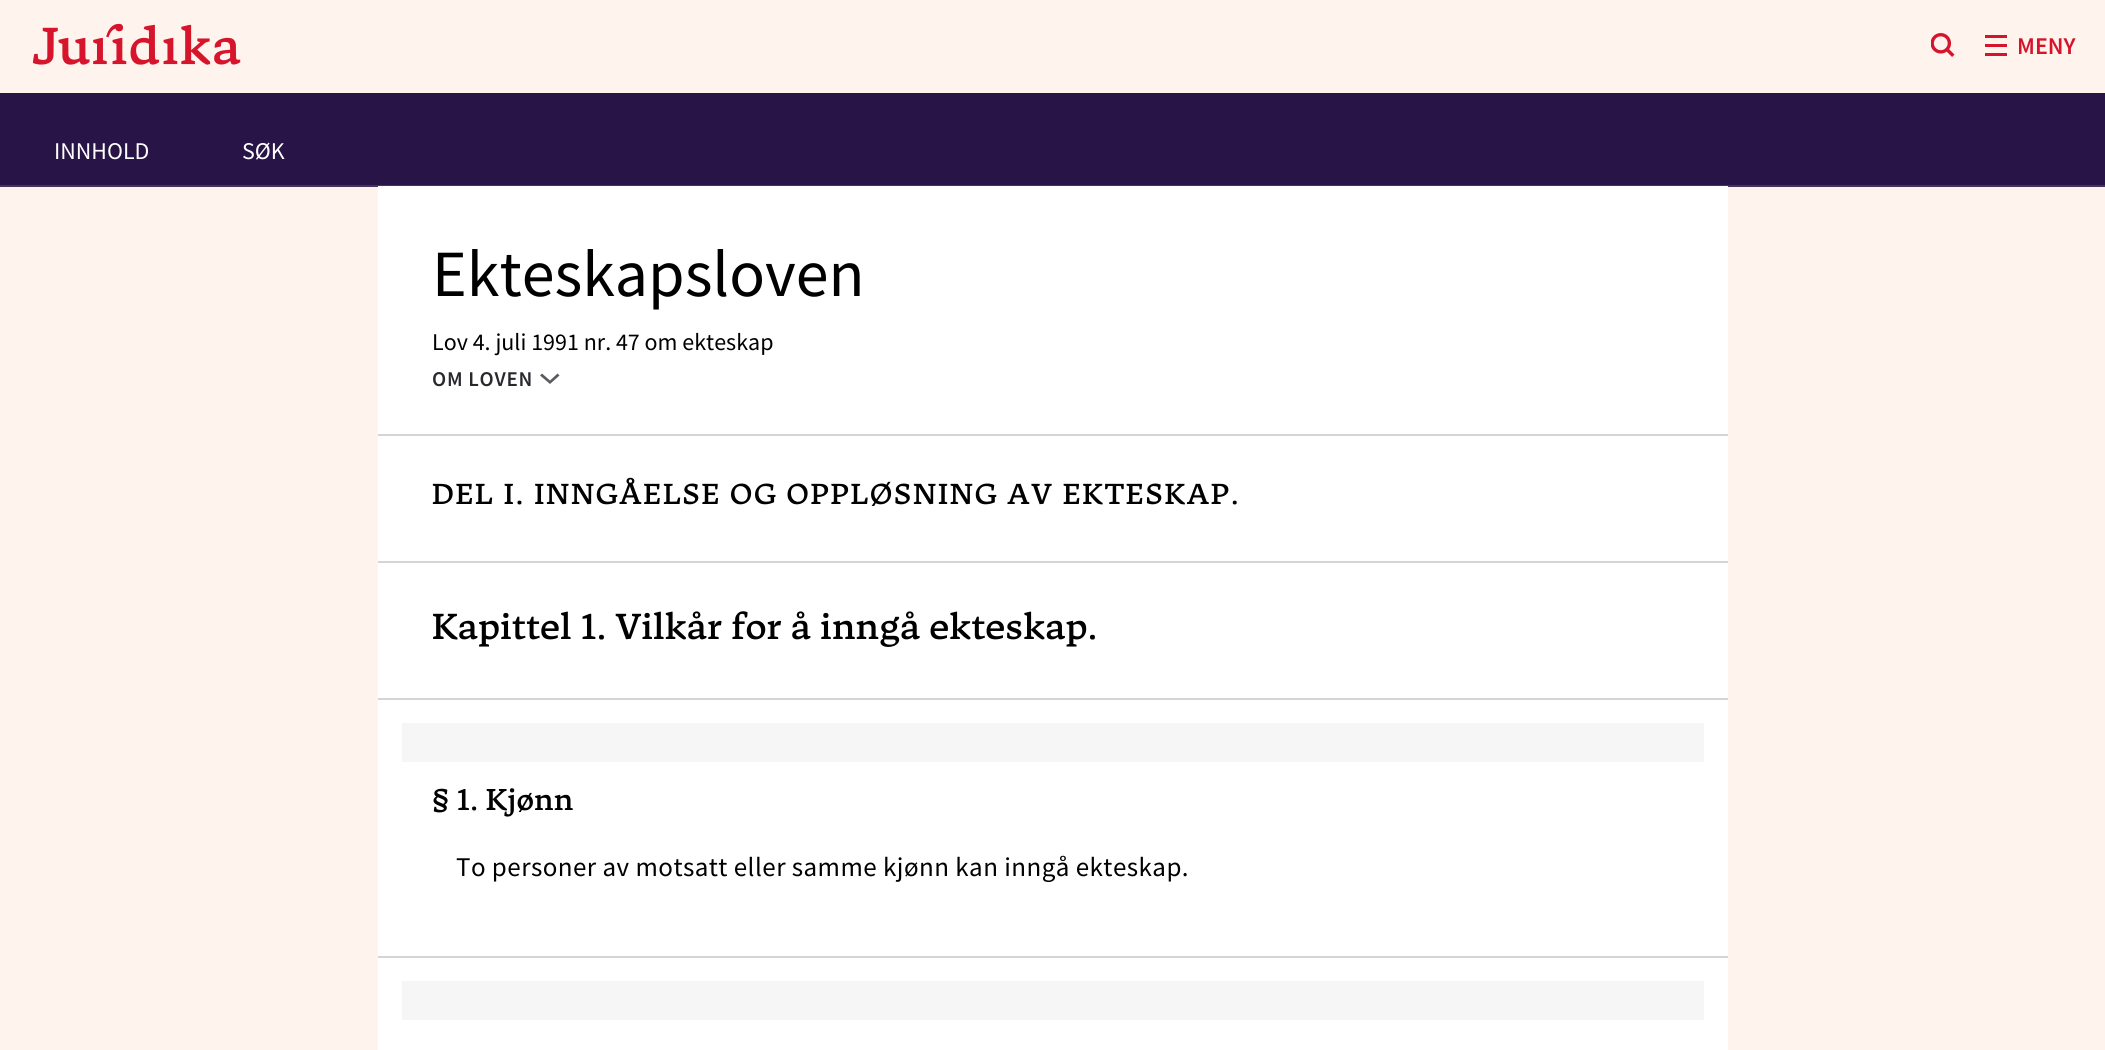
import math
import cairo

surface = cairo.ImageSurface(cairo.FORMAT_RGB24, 2105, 1050)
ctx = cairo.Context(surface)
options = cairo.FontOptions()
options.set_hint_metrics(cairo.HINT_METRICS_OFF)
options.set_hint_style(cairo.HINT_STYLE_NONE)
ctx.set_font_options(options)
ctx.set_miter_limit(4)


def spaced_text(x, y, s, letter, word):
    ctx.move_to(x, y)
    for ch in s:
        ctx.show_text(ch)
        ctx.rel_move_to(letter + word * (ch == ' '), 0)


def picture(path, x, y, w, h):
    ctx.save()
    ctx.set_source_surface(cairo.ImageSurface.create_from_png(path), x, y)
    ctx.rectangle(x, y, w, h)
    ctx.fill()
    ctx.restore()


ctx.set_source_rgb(1, 0.953, 0.929)
ctx.paint()
picture("img1.png", 32, 23, 209, 42)
picture("img2.png", 1931, 33, 24, 24)
ctx.set_source_rgb(0.839, 0.078, 0.169)
ctx.rectangle(1985, 35, 22, 3)
ctx.fill()
ctx.rectangle(1985, 44, 22, 3)
ctx.fill()
ctx.rectangle(1985, 53, 22, 3)
ctx.fill()
ctx.select_font_face("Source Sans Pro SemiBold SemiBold")
ctx.set_font_size(24)
ctx.move_to(2017, 54)
ctx.show_text("MENY")
ctx.set_source_rgb(0.161, 0.082, 0.278)
ctx.rectangle(0, 93, 2105, 92)
ctx.fill()
ctx.set_source_rgb(0.275, 0.204, 0.376)
ctx.rectangle(0, 185, 2105, 2)
ctx.fill()
ctx.select_font_face("Source Sans Pro")
ctx.set_source_rgb(1, 1, 1)
ctx.move_to(54, 159)
ctx.show_text("INNHOLD")
ctx.move_to(242, 159)
ctx.show_text("SØK")
ctx.rectangle(378, 186, 1350, 864)
ctx.fill()
ctx.set_source_rgb(0.839, 0.835, 0.839)
ctx.rectangle(378, 434, 1350, 2)
ctx.fill()
ctx.set_font_size(66)
ctx.set_source_rgb(0, 0, 0)
ctx.move_to(432, 296)
ctx.show_text("Ekteskapsloven")
ctx.set_font_size(24)
ctx.move_to(432, 350)
ctx.show_text("Lov 4. juli 1991 nr. 47 om ekteskap")
ctx.select_font_face("Source Sans Pro SemiBold SemiBold")
ctx.set_font_size(21)
ctx.set_source_rgb(0.161, 0.157, 0.18)
spaced_text(432, 386, "OM LOVEN", 0.75, 0)
ctx.set_source_rgb(0.361, 0.357, 0.373)
ctx.set_fill_rule(cairo.FILL_RULE_EVEN_ODD)
ctx.new_path()
ctx.move_to(559.5, 375.5)
ctx.line_to(550, 384)
ctx.line_to(540, 375.5)
ctx.line_to(542, 373.5)
ctx.line_to(550, 380.5)
ctx.line_to(557.5, 373.5)
ctx.close_path()
ctx.fill()
ctx.set_source_rgb(0.839, 0.835, 0.839)
ctx.rectangle(378, 561, 1350, 2)
ctx.fill()
ctx.select_font_face("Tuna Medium")
ctx.set_font_size(28.8)
ctx.set_source_rgb(0, 0, 0)
spaced_text(432, 504, "DEL I. INNGÅELSE OG OPPLØSNING AV EKTESKAP.", 1.8, 0)
ctx.set_source_rgb(0.839, 0.835, 0.839)
ctx.rectangle(378, 698, 1350, 2)
ctx.fill()
ctx.set_font_size(36)
ctx.set_source_rgb(0, 0, 0)
ctx.move_to(432, 639)
ctx.show_text("Kapittel 1. Vilkår for å inngå ekteskap.")
ctx.set_source_rgb(0.839, 0.835, 0.839)
ctx.rectangle(378, 956, 1350, 2)
ctx.fill()
ctx.set_source_rgb(0.961, 0.961, 0.961)
ctx.rectangle(402, 723, 1302, 39)
ctx.fill()
ctx.set_font_size(30)
ctx.set_source_rgb(0, 0, 0)
ctx.move_to(432, 810)
ctx.show_text("§ 1. Kjønn")
ctx.select_font_face("Source Sans Pro")
ctx.set_font_size(27)
spaced_text(456, 876, "To personer av motsatt eller samme kjønn kan inngå ekteskap.", 0.45, 0)
ctx.set_source_rgb(0.961, 0.961, 0.961)
ctx.rectangle(402, 981, 1302, 39)
ctx.fill()
surface.write_to_png("page.png")
